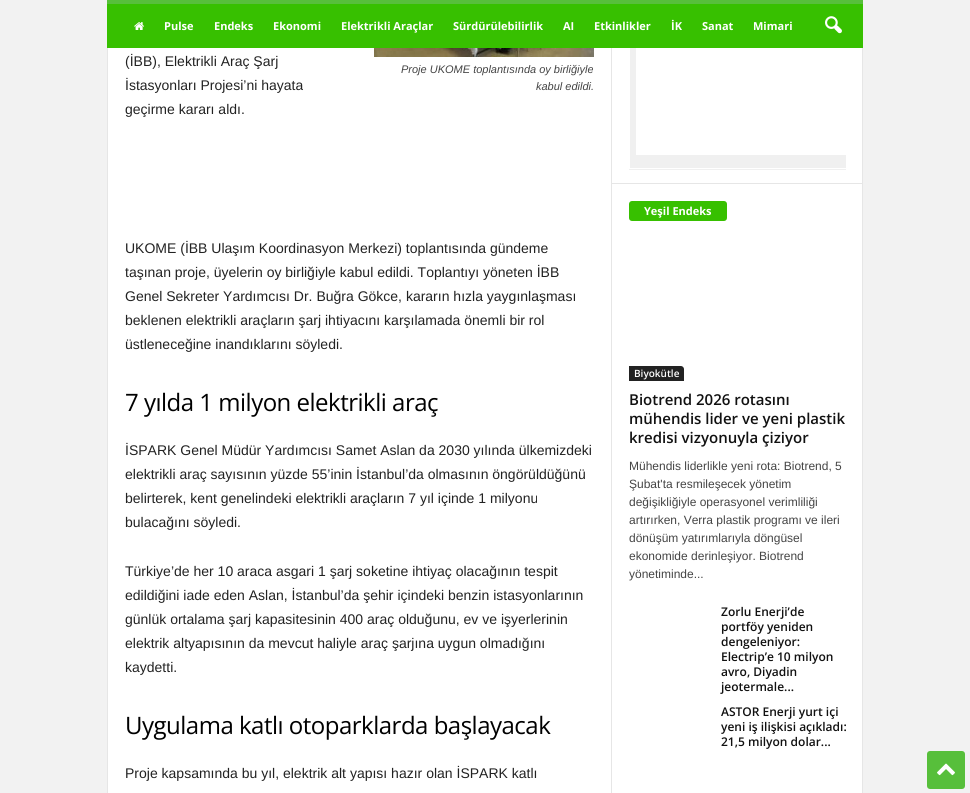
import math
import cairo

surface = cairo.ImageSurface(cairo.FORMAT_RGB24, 970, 793)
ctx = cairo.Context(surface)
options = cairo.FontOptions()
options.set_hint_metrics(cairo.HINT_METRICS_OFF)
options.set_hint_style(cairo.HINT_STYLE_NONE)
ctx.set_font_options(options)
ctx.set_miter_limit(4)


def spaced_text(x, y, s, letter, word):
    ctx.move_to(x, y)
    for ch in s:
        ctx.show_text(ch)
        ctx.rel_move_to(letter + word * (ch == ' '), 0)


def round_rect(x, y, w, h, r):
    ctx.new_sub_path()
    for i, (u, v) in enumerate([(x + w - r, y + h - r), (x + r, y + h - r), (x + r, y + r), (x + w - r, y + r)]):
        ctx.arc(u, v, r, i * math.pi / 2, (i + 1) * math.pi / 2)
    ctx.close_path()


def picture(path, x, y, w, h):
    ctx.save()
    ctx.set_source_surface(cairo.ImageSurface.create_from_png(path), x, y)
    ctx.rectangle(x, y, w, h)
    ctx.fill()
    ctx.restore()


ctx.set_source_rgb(0.949, 0.949, 0.949)
ctx.paint()
ctx.set_source_rgb(0.216, 0.753, 0)
ctx.rectangle(107, 4, 756, 44)
ctx.fill()
ctx.set_source_rgb(0.341, 0.749, 0.231)
ctx.rectangle(107, 0, 756, 4)
ctx.fill()
picture("img1.png", 134, 22, 10, 8)
ctx.select_font_face("Open Sans", cairo.FONT_SLANT_NORMAL, cairo.FONT_WEIGHT_BOLD)
ctx.set_font_size(11)
ctx.set_source_rgb(1, 1, 1)
ctx.move_to(164, 30)
ctx.show_text("Pulse")
ctx.move_to(214, 30)
ctx.show_text("Endeks")
ctx.move_to(273, 30)
ctx.show_text("Ekonomi")
ctx.move_to(341, 30)
ctx.show_text("Elektrikli Araçlar")
ctx.move_to(453, 30)
ctx.show_text("Sürdürülebilirlik")
ctx.move_to(563, 30)
ctx.show_text("AI")
ctx.move_to(594, 30)
ctx.show_text("Etkinlikler")
ctx.move_to(671, 30)
ctx.show_text("İK")
ctx.move_to(702, 30)
ctx.show_text("Sanat")
ctx.move_to(753, 30)
ctx.show_text("Mimari")
picture("img2.png", 825, 16, 17, 18)
ctx.rectangle(108, 48, 754, 745)
ctx.fill()
ctx.set_source_rgb(0.902, 0.902, 0.902)
ctx.rectangle(107, 48, 1, 745)
ctx.fill()
ctx.select_font_face("Liberation Sans")
ctx.set_font_size(14)
ctx.set_source_rgb(0.133, 0.133, 0.133)
ctx.move_to(125, 66)
ctx.show_text("(İBB), Elektrikli Araç Şarj")
ctx.move_to(125, 90)
ctx.show_text("İstasyonları Projesi’ni hayata")
ctx.move_to(125, 114)
ctx.show_text("geçirme kararı aldı.")
picture("img3.png", 374, 48, 220, 9)
ctx.select_font_face("Liberation Sans", cairo.FONT_SLANT_ITALIC)
ctx.set_font_size(11)
ctx.set_source_rgb(0.267, 0.267, 0.267)
ctx.move_to(401, 73)
ctx.show_text("Proje UKOME toplantısında oy birliğiyle")
ctx.move_to(536, 90)
ctx.show_text("kabul edildi.")
ctx.select_font_face("Liberation Sans")
ctx.set_font_size(14)
ctx.set_source_rgb(0.133, 0.133, 0.133)
ctx.move_to(125, 253)
ctx.show_text("UKOME (İBB Ulaşım Koordinasyon Merkezi) toplantısında gündeme")
ctx.move_to(125, 277)
ctx.show_text("taşınan proje, üyelerin oy birliğiyle kabul edildi. Toplantıyı yöneten İBB")
ctx.move_to(125, 301)
ctx.show_text("Genel Sekreter Yardımcısı Dr. Buğra Gökce, kararın hızla yaygınlaşması")
ctx.move_to(125, 325)
ctx.show_text("beklenen elektrikli araçların şarj ihtiyacını karşılamada önemli bir rol")
ctx.move_to(125, 349)
ctx.show_text("üstleneceğine inandıklarını söyledi.")
ctx.select_font_face("Open Sans")
ctx.set_font_size(24)
ctx.set_source_rgb(0, 0, 0)
spaced_text(125, 411, "7 yılda 1 milyon elektrikli araç", -0.5, 0)
ctx.select_font_face("Liberation Sans")
ctx.set_font_size(14)
ctx.set_source_rgb(0.133, 0.133, 0.133)
ctx.move_to(125, 455)
ctx.show_text("İSPARK Genel Müdür Yardımcısı Samet Aslan da 2030 yılında ülkemizdeki")
ctx.move_to(125, 479)
ctx.show_text("elektrikli araç sayısının yüzde 55’inin İstanbul’da olmasının öngörüldüğünü")
ctx.move_to(125, 503)
ctx.show_text("belirterek, kent genelindeki elektrikli araçların 7 yıl içinde 1 milyonu")
ctx.move_to(125, 527)
ctx.show_text("bulacağını söyledi.")
ctx.move_to(125, 576)
ctx.show_text("Türkiye’de her 10 araca asgari 1 şarj soketine ihtiyaç olacağının tespit")
ctx.move_to(125, 600)
ctx.show_text("edildiğini iade eden Aslan, İstanbul’da şehir içindeki benzin istasyonlarının")
ctx.move_to(125, 624)
ctx.show_text("günlük ortalama şarj kapasitesinin 400 araç olduğunu, ev ve işyerlerinin")
ctx.move_to(125, 648)
ctx.show_text("elektrik altyapısının da mevcut haliyle araç şarjına uygun olmadığını")
ctx.move_to(125, 672)
ctx.show_text("kaydetti.")
ctx.select_font_face("Open Sans")
ctx.set_font_size(24)
ctx.set_source_rgb(0, 0, 0)
spaced_text(125, 734, "Uygulama katlı otoparklarda başlayacak", -0.5, 0)
ctx.select_font_face("Liberation Sans")
ctx.set_font_size(14)
ctx.set_source_rgb(0.133, 0.133, 0.133)
ctx.move_to(125, 778)
ctx.show_text("Proje kapsamında bu yıl, elektrik alt yapısı hazır olan İSPARK katlı")
ctx.set_source_rgb(0.902, 0.902, 0.902)
ctx.rectangle(611, 48, 1, 745)
ctx.fill()
ctx.set_source_rgb(0.941, 0.941, 0.941)
ctx.rectangle(629, 169, 217, 1)
ctx.fill()
ctx.rectangle(630, 48, 216, 120)
ctx.fill()
ctx.set_source_rgb(1, 1, 1)
ctx.rectangle(636, 48, 210, 107)
ctx.fill()
ctx.set_source_rgb(0.902, 0.902, 0.902)
ctx.rectangle(862, 48, 1, 745)
ctx.fill()
ctx.rectangle(612, 183, 251, 1)
ctx.fill()
ctx.set_source_rgb(0.216, 0.753, 0)
round_rect(629, 201, 98, 20, 3)
ctx.fill()
ctx.select_font_face("Open Sans", cairo.FONT_SLANT_NORMAL, cairo.FONT_WEIGHT_BOLD)
ctx.set_font_size(11)
ctx.set_source_rgb(1, 1, 1)
ctx.move_to(644, 215)
ctx.show_text("Yeşil Endeks")
ctx.set_source_rgb(0.133, 0.133, 0.133)
ctx.new_path()
ctx.move_to(629, 366)
ctx.line_to(681, 366)
ctx.curve_to(682.5, 366, 684, 367.5, 684, 369)
ctx.line_to(684, 381)
ctx.line_to(629, 381)
ctx.close_path()
ctx.fill()
ctx.select_font_face("Open Sans SemiBold")
ctx.set_font_size(10)
ctx.set_source_rgb(1, 1, 1)
ctx.move_to(634, 377)
ctx.show_text("Biyokütle")
ctx.set_font_size(15)
ctx.set_source_rgb(0.067, 0.067, 0.067)
ctx.move_to(629, 405)
ctx.show_text("Biotrend 2026 rotasını")
ctx.move_to(629, 424)
ctx.show_text("mühendis lider ve yeni plastik")
ctx.move_to(629, 443)
ctx.show_text("kredisi vizyonuyla çiziyor")
ctx.select_font_face("Liberation Sans")
ctx.set_font_size(12)
ctx.set_source_rgb(0.267, 0.267, 0.267)
ctx.move_to(629, 470)
ctx.show_text("Mühendis liderlikle yeni rota: Biotrend, 5")
ctx.move_to(629, 488)
ctx.show_text("Şubat'ta resmileşecek yönetim")
ctx.move_to(629, 506)
ctx.show_text("değişikliğiyle operasyonel verimliliği")
ctx.move_to(629, 524)
ctx.show_text("artırırken, Verra plastik programı ve ileri")
ctx.move_to(629, 542)
ctx.show_text("dönüşüm yatırımlarıyla döngüsel")
ctx.move_to(629, 560)
ctx.show_text("ekonomide derinleşiyor. Biotrend")
ctx.move_to(629, 578)
ctx.show_text("yönetiminde...")
ctx.select_font_face("Open Sans SemiBold")
ctx.set_source_rgb(0.067, 0.067, 0.067)
ctx.move_to(721, 616)
ctx.show_text("Zorlu Enerji’de")
ctx.move_to(721, 631)
ctx.show_text("portföy yeniden")
ctx.move_to(721, 646)
ctx.show_text("dengeleniyor:")
ctx.move_to(721, 661)
ctx.show_text("Electrip’e 10 milyon")
ctx.move_to(721, 676)
ctx.show_text("avro, Diyadin")
ctx.move_to(721, 691)
ctx.show_text("jeotermale...")
ctx.move_to(721, 716)
ctx.show_text("ASTOR Enerji yurt içi")
ctx.move_to(721, 731)
ctx.show_text("yeni iş ilişkisi açıkladı:")
ctx.move_to(721, 746)
ctx.show_text("21,5 milyon dolar...")
ctx.set_source_rgb(0.341, 0.749, 0.231)
round_rect(927, 751, 38, 38, 3)
ctx.fill()
picture("img4.png", 937, 763, 18, 13)
surface.write_to_png("page.png")
